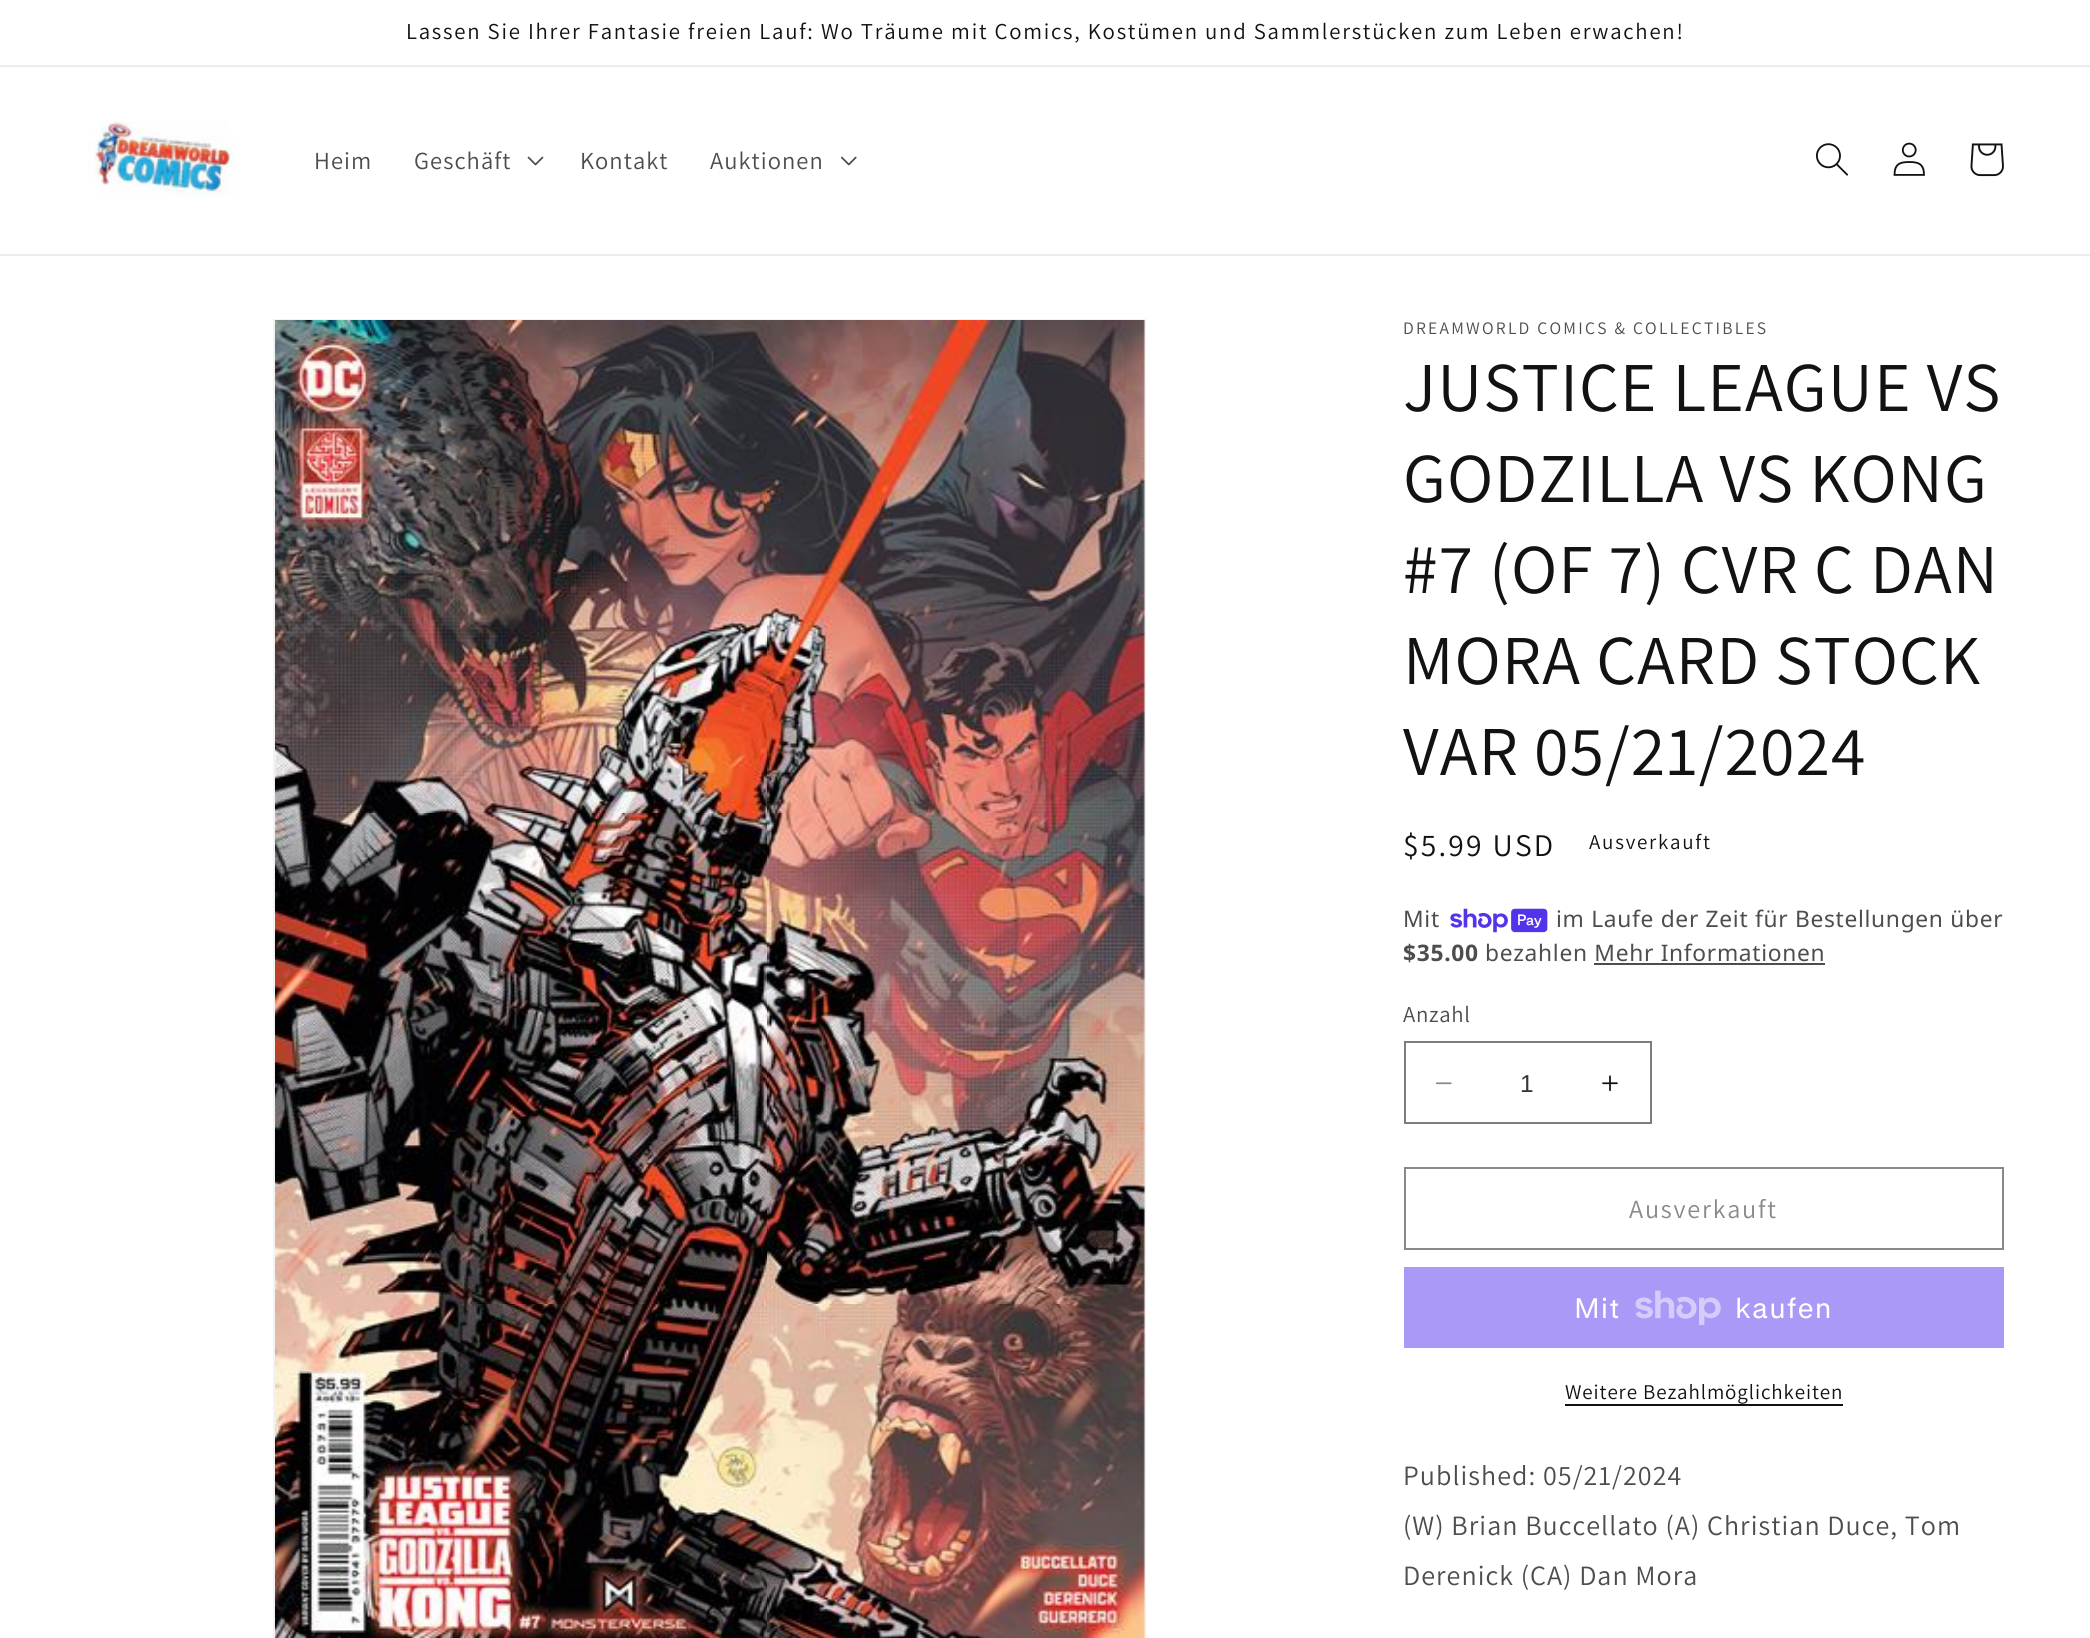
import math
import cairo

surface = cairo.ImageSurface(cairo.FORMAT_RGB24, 2090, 1638)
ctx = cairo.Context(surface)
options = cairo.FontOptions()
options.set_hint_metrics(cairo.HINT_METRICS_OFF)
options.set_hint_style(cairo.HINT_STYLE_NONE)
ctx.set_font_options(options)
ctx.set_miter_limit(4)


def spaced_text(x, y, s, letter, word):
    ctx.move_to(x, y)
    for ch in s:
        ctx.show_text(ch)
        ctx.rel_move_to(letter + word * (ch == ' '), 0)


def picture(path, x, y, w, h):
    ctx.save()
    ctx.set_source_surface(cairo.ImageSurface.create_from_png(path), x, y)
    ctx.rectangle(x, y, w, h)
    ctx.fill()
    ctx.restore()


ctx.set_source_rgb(1, 1, 1)
ctx.paint()
ctx.set_source_rgb(0.925, 0.925, 0.925)
ctx.rectangle(0, 65, 2090, 2)
ctx.fill()
ctx.select_font_face("Assistant")
ctx.set_font_size(22.75)
ctx.set_source_rgb(0.071, 0.071, 0.071)
spaced_text(406, 39, "Lassen Sie Ihrer Fantasie freien Lauf: Wo Träume mit Comics, Kostümen und Sammlerstücken zum Leben erwachen!", 1.75, 0)
ctx.set_source_rgb(0.925, 0.925, 0.925)
ctx.rectangle(0, 254, 2090, 2)
ctx.fill()
picture("img1.png", 87, 120, 153, 78)
ctx.set_font_size(24.5)
ctx.set_source_rgb(0.302, 0.302, 0.302)
spaced_text(314, 169, "Heim", 1.05, 0)
spaced_text(414, 169, "Geschäft", 1.05, 0)
picture("img2.png", 527, 156, 17, 10)
spaced_text(580, 169, "Kontakt", 1.05, 0)
spaced_text(710, 169, "Auktionen", 1.05, 0)
picture("img3.png", 840, 156, 17, 10)
picture("img4.png", 1816, 143, 32, 33)
picture("img5.png", 1893, 142, 32, 34)
picture("img6.png", 1970, 143, 34, 34)
ctx.rectangle(274, 320, 871, 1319)
ctx.set_source_rgb(0.953, 0.953, 0.953)
ctx.stroke()
picture("img7.png", 275, 320, 870, 1318)
ctx.set_font_size(17.5)
ctx.set_source_rgb(0.302, 0.302, 0.302)
spaced_text(1403, 334, "DREAMWORLD COMICS & COLLECTIBLES", 2.25, 0)
ctx.set_font_size(70)
ctx.set_source_rgb(0.071, 0.071, 0.071)
spaced_text(1403, 411, "JUSTICE LEAGUE VS", 1.05, 0)
spaced_text(1403, 502, "GODZILLA VS KONG", 1.05, 0)
spaced_text(1403, 593, "#7 (OF 7) CVR C DAN", 1.05, 0)
spaced_text(1403, 684, "MORA CARD STOCK", 1.05, 0)
spaced_text(1403, 775, "VAR 05/21/2024", 1.05, 0)
ctx.set_font_size(31.5)
spaced_text(1403, 856, "$5.99 USD", 2.25, 0)
ctx.set_font_size(21)
spaced_text(1589, 849, "Ausverkauft", 1.75, 0)
ctx.select_font_face("Noto Sans")
ctx.set_font_size(22.75)
ctx.set_source_rgb(0.302, 0.302, 0.302)
spaced_text(1403, 927, "Mit", 0.7, 0)
picture("img8.png", 1450, 908, 98, 25)
spaced_text(1556, 927, "im Laufe der Zeit für Bestellungen über", 0.7, 0)
ctx.select_font_face("Noto Sans", cairo.FONT_SLANT_NORMAL, cairo.FONT_WEIGHT_BOLD)
spaced_text(1403, 961, "$35.00", 0.7, 0)
ctx.select_font_face("Noto Sans")
spaced_text(1485, 961, "bezahlen Mehr Informationen", 0.7, 0)
ctx.rectangle(1594, 963, 231, 2)
ctx.fill()
ctx.select_font_face("Assistant")
spaced_text(1403, 1022, "Anzahl", 0.7, 0)
picture("img9.png", 1436, 1082, 16, 3)
picture("img10.png", 1602, 1075, 16, 17)
ctx.rectangle(1405, 1042, 246, 81)
ctx.set_source_rgb(0.49, 0.49, 0.49)
ctx.stroke()
ctx.select_font_face("Liberation Sans")
ctx.set_font_size(24.5)
ctx.set_source_rgb(0.212, 0.212, 0.212)
ctx.move_to(1520, 1092)
ctx.show_text("1")
ctx.rectangle(1405, 1168, 598, 81)
ctx.set_source_rgb(0.537, 0.537, 0.537)
ctx.stroke()
ctx.select_font_face("Assistant")
ctx.set_font_size(26.25)
spaced_text(1629, 1218, "Ausverkauft", 1.75, 0)
ctx.set_source_rgb(0.667, 0.6, 0.961)
ctx.rectangle(1404, 1267, 600, 81)
ctx.fill()
ctx.select_font_face("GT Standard")
ctx.set_font_size(28)
ctx.set_source_rgb(1, 1, 1)
spaced_text(1574, 1318, "Mit", 1.05, 0)
picture("img11.png", 1635, 1290, 86, 35)
spaced_text(1735, 1318, "kaufen", 1.05, 0)
ctx.select_font_face("Assistant")
ctx.set_font_size(21)
ctx.set_source_rgb(0.071, 0.071, 0.071)
spaced_text(1565, 1399, "Weitere Bezahlmöglichkeiten", 0.9, 0)
ctx.rectangle(1565, 1404, 278, 2)
ctx.fill()
ctx.set_font_size(28)
ctx.set_source_rgb(0.302, 0.302, 0.302)
spaced_text(1403, 1485, "Published: 05/21/2024", 1.05, 0)
spaced_text(1403, 1535, "(W) Brian Buccellato (A) Christian Duce, Tom", 1.05, 0)
spaced_text(1403, 1585, "Derenick (CA) Dan Mora", 1.05, 0)
surface.write_to_png("page.png")
